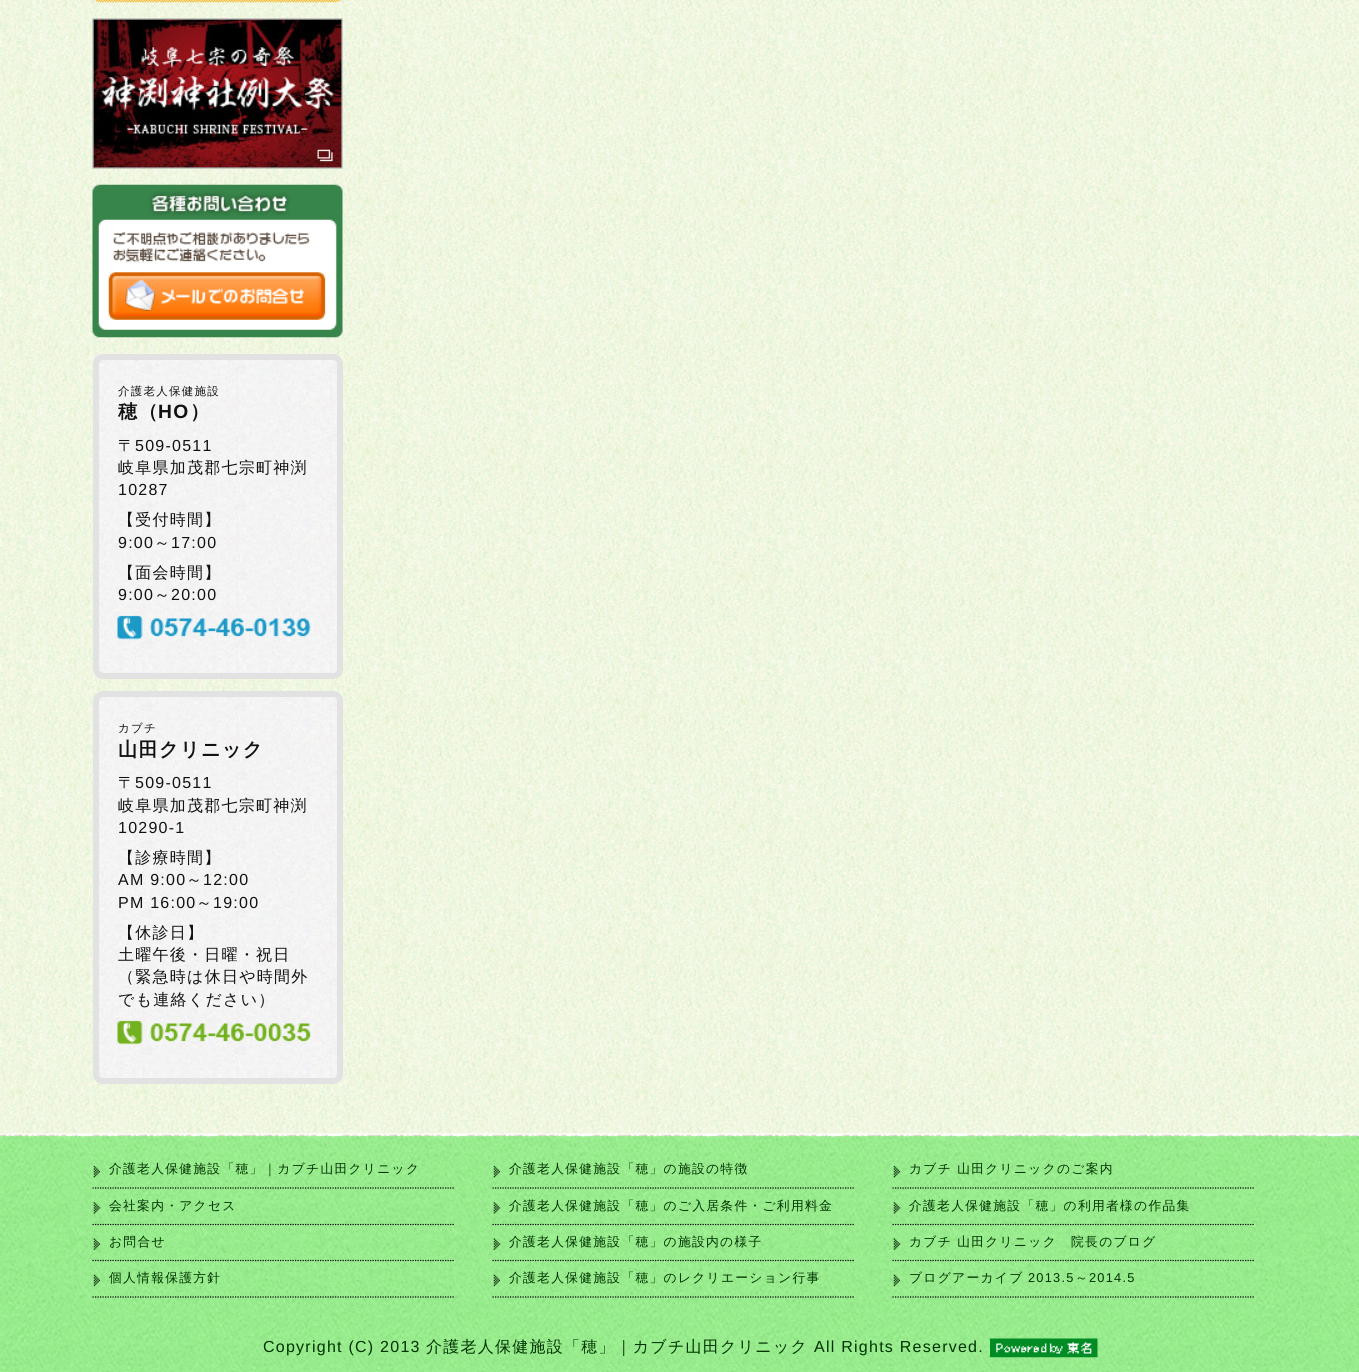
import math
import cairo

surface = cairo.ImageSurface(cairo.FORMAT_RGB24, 1359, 1372)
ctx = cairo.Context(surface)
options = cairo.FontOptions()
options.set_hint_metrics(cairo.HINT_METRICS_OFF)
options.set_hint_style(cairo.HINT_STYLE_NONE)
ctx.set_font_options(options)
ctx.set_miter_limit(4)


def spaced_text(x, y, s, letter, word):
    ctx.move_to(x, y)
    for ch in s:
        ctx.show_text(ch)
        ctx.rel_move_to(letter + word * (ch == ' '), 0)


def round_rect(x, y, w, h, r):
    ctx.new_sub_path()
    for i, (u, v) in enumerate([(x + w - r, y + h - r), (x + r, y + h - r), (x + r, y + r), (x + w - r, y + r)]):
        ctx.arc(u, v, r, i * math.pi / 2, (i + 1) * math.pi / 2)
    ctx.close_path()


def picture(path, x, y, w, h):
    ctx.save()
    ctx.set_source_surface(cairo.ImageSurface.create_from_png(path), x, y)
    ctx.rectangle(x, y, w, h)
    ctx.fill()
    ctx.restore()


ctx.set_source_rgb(1, 1, 1)
ctx.paint()
picture("img1.png", 0, 0, 1359, 1134)
picture("img2.png", 93, 0, 248, 3)
picture("img3.png", 92, 18, 251, 151)
picture("img4.png", 92, 184, 251, 154)
picture("img5.png", 92, 353, 251, 326)
round_rect(96, 357, 244, 319, 7)
ctx.set_source_rgb(0.886, 0.886, 0.886)
ctx.set_line_width(6)
ctx.stroke()
ctx.select_font_face("WenQuanYi Zen Hei Medium")
ctx.set_font_size(11.5)
ctx.set_source_rgb(0.067, 0.067, 0.067)
spaced_text(118, 395, "介護老人保健施設", 1.25, 0)
ctx.select_font_face("WenQuanYi Zen Hei", cairo.FONT_SLANT_NORMAL, cairo.FONT_WEIGHT_BOLD)
ctx.set_font_size(19.25)
spaced_text(118, 418, "穂（", 1.25, 0)
ctx.select_font_face("Liberation Sans", cairo.FONT_SLANT_NORMAL, cairo.FONT_WEIGHT_BOLD)
spaced_text(158, 418, "HO", 1.25, 0)
ctx.select_font_face("WenQuanYi Zen Hei", cairo.FONT_SLANT_NORMAL, cairo.FONT_WEIGHT_BOLD)
spaced_text(190, 418, "）", 1.25, 0)
ctx.select_font_face("WenQuanYi Zen Hei Medium")
ctx.set_font_size(16)
spaced_text(118, 451, "〒", 1.25, 0)
ctx.select_font_face("Liberation Sans")
spaced_text(135, 451, "509-0511", 1.25, 0)
ctx.select_font_face("WenQuanYi Zen Hei Medium")
spaced_text(118, 473, "岐阜県加茂郡七宗町神渕", 1.25, 0)
ctx.select_font_face("Liberation Sans")
spaced_text(118, 495, "10287", 1.25, 0)
ctx.select_font_face("WenQuanYi Zen Hei Medium")
spaced_text(118, 525, "【受付時間】", 1.25, 0)
ctx.select_font_face("Liberation Sans")
spaced_text(118, 548, "9:00", 1.25, 0)
ctx.select_font_face("WenQuanYi Zen Hei Medium")
spaced_text(154, 548, "～", 1.25, 0)
ctx.select_font_face("Liberation Sans")
spaced_text(171, 548, "17:00", 1.25, 0)
ctx.select_font_face("WenQuanYi Zen Hei Medium")
spaced_text(118, 578, "【面会時間】", 1.25, 0)
ctx.select_font_face("Liberation Sans")
spaced_text(118, 600, "9:00", 1.25, 0)
ctx.select_font_face("WenQuanYi Zen Hei Medium")
spaced_text(154, 600, "～", 1.25, 0)
ctx.select_font_face("Liberation Sans")
spaced_text(171, 600, "20:00", 1.25, 0)
picture("img6.png", 117, 615, 194, 25)
picture("img7.png", 92, 691, 251, 393)
round_rect(96, 694, 244, 387, 7)
ctx.set_source_rgb(0.886, 0.886, 0.886)
ctx.stroke()
ctx.select_font_face("WenQuanYi Zen Hei Medium")
ctx.set_font_size(11.5)
ctx.set_source_rgb(0.067, 0.067, 0.067)
spaced_text(118, 732, "カブチ", 1.25, 0)
ctx.select_font_face("WenQuanYi Zen Hei", cairo.FONT_SLANT_NORMAL, cairo.FONT_WEIGHT_BOLD)
ctx.set_font_size(19.25)
spaced_text(118, 756, "山田クリニック", 1.25, 0)
ctx.select_font_face("WenQuanYi Zen Hei Medium")
ctx.set_font_size(16)
spaced_text(118, 788, "〒", 1.25, 0)
ctx.select_font_face("Liberation Sans")
spaced_text(135, 788, "509-0511", 1.25, 0)
ctx.select_font_face("WenQuanYi Zen Hei Medium")
spaced_text(118, 811, "岐阜県加茂郡七宗町神渕", 1.25, 0)
ctx.select_font_face("Liberation Sans")
spaced_text(118, 833, "10290-1", 1.25, 0)
ctx.select_font_face("WenQuanYi Zen Hei Medium")
spaced_text(118, 863, "【診療時間】", 1.25, 0)
ctx.select_font_face("Liberation Sans")
spaced_text(118, 885, "AM 9:00", 1.25, 0)
ctx.select_font_face("WenQuanYi Zen Hei Medium")
spaced_text(186, 885, "～", 1.25, 0)
ctx.select_font_face("Liberation Sans")
spaced_text(203, 885, "12:00", 1.25, 0)
spaced_text(118, 908, "PM 16:00", 1.25, 0)
ctx.select_font_face("WenQuanYi Zen Hei Medium")
spaced_text(196, 908, "～", 1.25, 0)
ctx.select_font_face("Liberation Sans")
spaced_text(213, 908, "19:00", 1.25, 0)
ctx.select_font_face("WenQuanYi Zen Hei Medium")
spaced_text(118, 938, "【休診日】", 1.25, 0)
spaced_text(118, 960, "土曜午後・日曜・祝日", 1.25, 0)
spaced_text(118, 982, "（緊急時は休日や時間外", 1.25, 0)
spaced_text(118, 1005, "でも連絡ください）", 1.25, 0)
picture("img8.png", 117, 1020, 194, 25)
picture("img9.png", 0, 1133, 1359, 239)
picture("img10.png", 93, 1165, 8, 13)
ctx.new_path()
ctx.move_to(92.5, 1188)
ctx.line_to(455, 1188)
ctx.set_source_rgb(0, 0, 0)
ctx.set_line_width(1.2)
ctx.set_dash([1.25, 1.25])
ctx.stroke()
ctx.set_font_size(12.8)
ctx.set_source_rgb(0, 0.2, 0)
spaced_text(109, 1173, "介護老人保健施設「穂」｜カブチ山田クリニック", 1.25, 0)
picture("img11.png", 93, 1202, 8, 12)
ctx.new_path()
ctx.move_to(92.5, 1224.5)
ctx.line_to(455, 1224.5)
ctx.set_source_rgb(0, 0, 0)
ctx.stroke()
ctx.set_source_rgb(0, 0.2, 0)
spaced_text(109, 1210, "会社案内・アクセス", 1.25, 0)
picture("img12.png", 93, 1238, 8, 12)
ctx.new_path()
ctx.move_to(92.5, 1260.5)
ctx.line_to(455, 1260.5)
ctx.set_source_rgb(0, 0, 0)
ctx.stroke()
ctx.set_source_rgb(0, 0.2, 0)
spaced_text(109, 1246, "お問合せ", 1.25, 0)
picture("img13.png", 93, 1274, 8, 13)
ctx.new_path()
ctx.move_to(92.5, 1297)
ctx.line_to(455, 1297)
ctx.set_source_rgb(0, 0, 0)
ctx.stroke()
ctx.set_source_rgb(0, 0.2, 0)
spaced_text(109, 1282, "個人情報保護方針", 1.25, 0)
picture("img14.png", 493, 1165, 8, 13)
ctx.new_path()
ctx.move_to(492.5, 1188)
ctx.line_to(855, 1188)
ctx.set_source_rgb(0, 0, 0)
ctx.stroke()
ctx.set_source_rgb(0, 0.2, 0)
spaced_text(509, 1173, "介護老人保健施設「穂」の施設の特徴", 1.25, 0)
picture("img15.png", 493, 1202, 8, 12)
ctx.new_path()
ctx.move_to(492.5, 1224.5)
ctx.line_to(855, 1224.5)
ctx.set_source_rgb(0, 0, 0)
ctx.stroke()
ctx.set_source_rgb(0, 0.2, 0)
spaced_text(509, 1210, "介護老人保健施設「穂」のご入居条件・ご利用料金", 1.25, 0)
picture("img16.png", 493, 1238, 8, 12)
ctx.new_path()
ctx.move_to(492.5, 1260.5)
ctx.line_to(855, 1260.5)
ctx.set_source_rgb(0, 0, 0)
ctx.stroke()
ctx.set_source_rgb(0, 0.2, 0)
spaced_text(509, 1246, "介護老人保健施設「穂」の施設内の様子", 1.25, 0)
picture("img17.png", 493, 1274, 8, 13)
ctx.new_path()
ctx.move_to(492.5, 1297)
ctx.line_to(855, 1297)
ctx.set_source_rgb(0, 0, 0)
ctx.stroke()
ctx.set_source_rgb(0, 0.2, 0)
spaced_text(509, 1282, "介護老人保健施設「穂」のレクリエーション行事", 1.25, 0)
picture("img18.png", 893, 1165, 8, 13)
ctx.new_path()
ctx.move_to(892.5, 1188)
ctx.line_to(1255, 1188)
ctx.set_source_rgb(0, 0, 0)
ctx.stroke()
ctx.set_source_rgb(0, 0.2, 0)
spaced_text(909, 1173, "カブチ 山田クリニックのご案内", 1.25, 0)
picture("img19.png", 893, 1202, 8, 12)
ctx.new_path()
ctx.move_to(892.5, 1224.5)
ctx.line_to(1255, 1224.5)
ctx.set_source_rgb(0, 0, 0)
ctx.stroke()
ctx.set_source_rgb(0, 0.2, 0)
spaced_text(909, 1210, "介護老人保健施設「穂」の利用者様の作品集", 1.25, 0)
picture("img20.png", 893, 1238, 8, 12)
ctx.new_path()
ctx.move_to(892.5, 1260.5)
ctx.line_to(1255, 1260.5)
ctx.set_source_rgb(0, 0, 0)
ctx.stroke()
ctx.set_source_rgb(0, 0.2, 0)
spaced_text(909, 1246, "カブチ 山田クリニック　院長のブログ", 1.25, 0)
picture("img21.png", 893, 1274, 8, 13)
ctx.new_path()
ctx.move_to(892.5, 1297)
ctx.line_to(1255, 1297)
ctx.set_source_rgb(0, 0, 0)
ctx.stroke()
ctx.set_source_rgb(0, 0.2, 0)
spaced_text(909, 1282, "ブログアーカイブ", 1.25, 0)
ctx.select_font_face("Liberation Sans")
spaced_text(1028, 1282, "2013.5", 1.25, 0)
ctx.select_font_face("WenQuanYi Zen Hei Medium")
spaced_text(1075, 1282, "～", 1.25, 0)
ctx.select_font_face("Liberation Sans")
spaced_text(1089, 1282, "2014.5", 1.25, 0)
ctx.set_font_size(16)
spaced_text(263, 1352, "Copyright (C) 2013", 1.25, 0)
ctx.select_font_face("WenQuanYi Zen Hei Medium")
spaced_text(426, 1352, "介護老人保健施設「穂」｜カブチ山田クリニック", 1.25, 0)
ctx.select_font_face("Liberation Sans")
spaced_text(814, 1352, "All Rights Reserved.", 1.25, 0)
picture("img22.png", 990, 1338, 108, 20)
surface.write_to_png("page.png")
